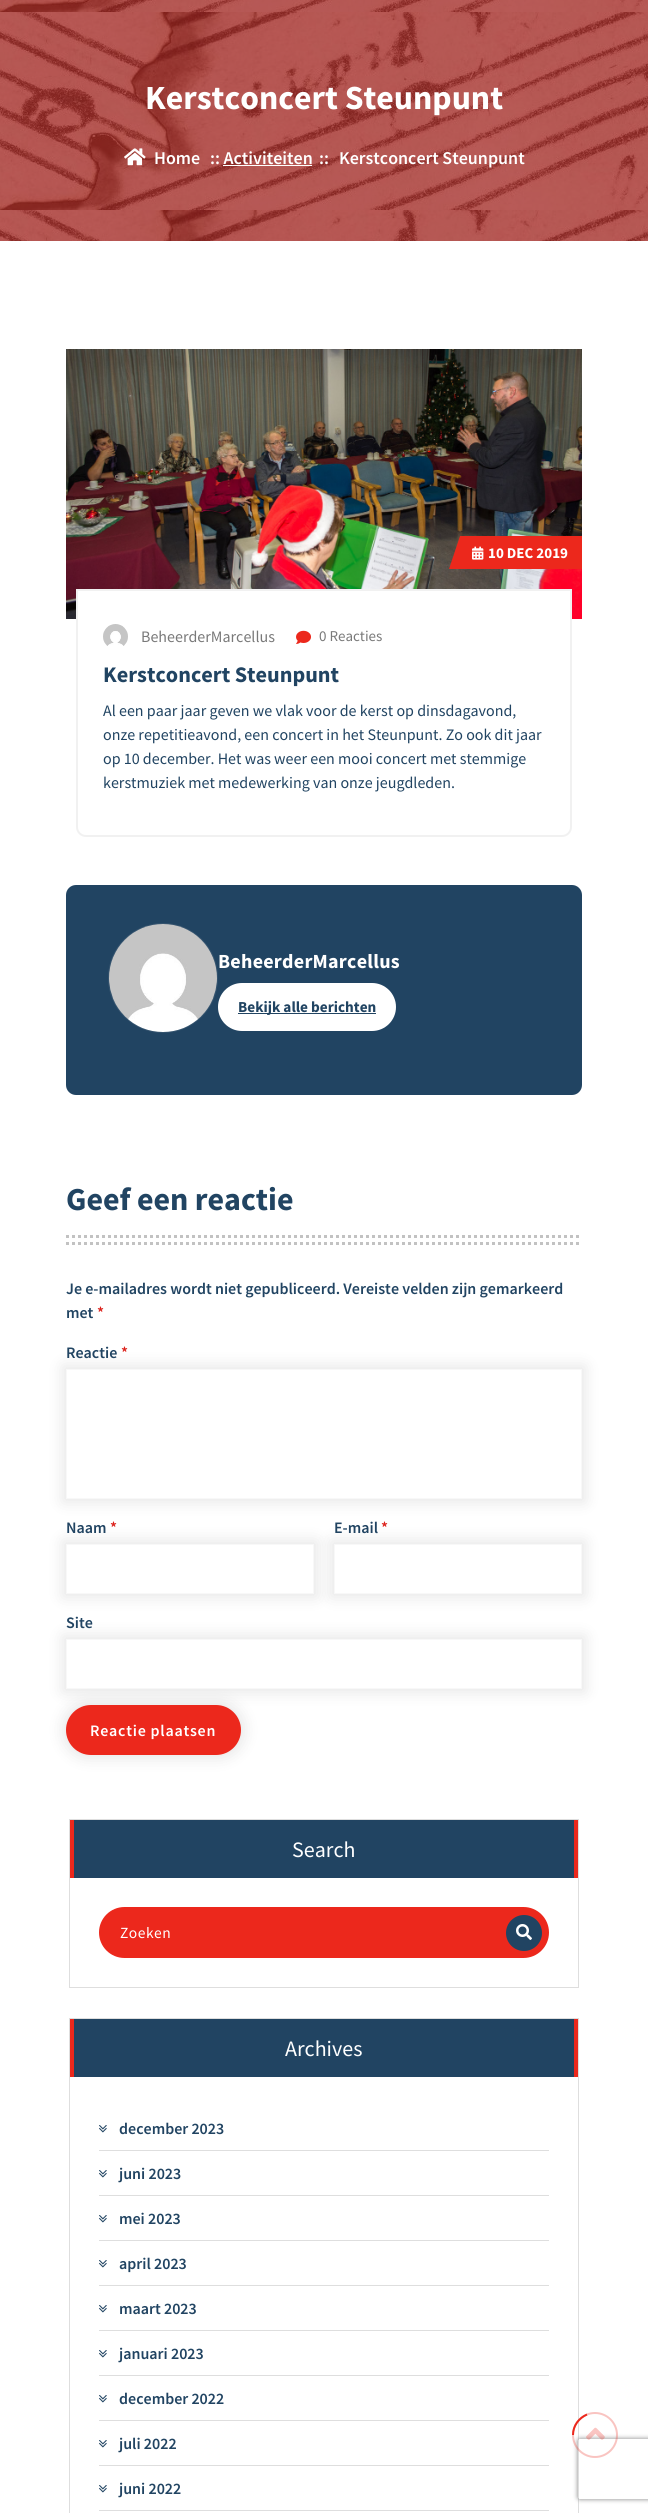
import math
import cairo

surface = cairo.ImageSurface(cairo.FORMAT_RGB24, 648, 2513)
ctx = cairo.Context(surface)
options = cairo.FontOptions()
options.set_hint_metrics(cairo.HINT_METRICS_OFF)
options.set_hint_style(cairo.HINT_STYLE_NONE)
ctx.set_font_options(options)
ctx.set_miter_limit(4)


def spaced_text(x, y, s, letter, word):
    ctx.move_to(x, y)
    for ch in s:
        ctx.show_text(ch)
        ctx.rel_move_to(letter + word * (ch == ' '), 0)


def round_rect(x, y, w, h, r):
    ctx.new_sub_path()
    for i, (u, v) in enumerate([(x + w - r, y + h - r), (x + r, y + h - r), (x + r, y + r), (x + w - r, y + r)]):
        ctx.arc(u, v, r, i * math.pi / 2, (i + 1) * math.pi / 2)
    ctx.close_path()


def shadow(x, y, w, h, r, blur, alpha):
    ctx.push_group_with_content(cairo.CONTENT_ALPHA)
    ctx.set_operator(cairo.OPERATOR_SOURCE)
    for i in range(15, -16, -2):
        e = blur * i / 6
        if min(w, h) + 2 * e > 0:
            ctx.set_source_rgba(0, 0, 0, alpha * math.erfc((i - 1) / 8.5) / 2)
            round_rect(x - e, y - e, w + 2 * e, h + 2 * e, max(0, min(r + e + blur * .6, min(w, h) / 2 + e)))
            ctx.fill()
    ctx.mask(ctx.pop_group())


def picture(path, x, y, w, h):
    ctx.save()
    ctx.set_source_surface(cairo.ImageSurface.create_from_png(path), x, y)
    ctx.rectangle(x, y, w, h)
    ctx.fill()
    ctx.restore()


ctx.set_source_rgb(1, 1, 1)
ctx.paint()
picture("img1.png", 0, 0, 648, 241)
ctx.select_font_face("Source Sans Pro", cairo.FONT_SLANT_NORMAL, cairo.FONT_WEIGHT_BOLD)
ctx.set_font_size(33.75)
ctx.set_source_rgb(1, 1, 1)
ctx.move_to(145, 109)
ctx.show_text("Kerstconcert Steunpunt")
picture("img2.png", 124, 148, 22, 18)
ctx.select_font_face("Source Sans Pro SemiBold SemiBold")
ctx.set_font_size(18)
ctx.move_to(154, 164)
ctx.show_text("Home")
ctx.move_to(210, 164)
ctx.show_text(":: Activiteiten")
ctx.move_to(319, 164)
ctx.show_text("::")
ctx.rectangle(223, 165, 89, 1)
ctx.fill()
ctx.move_to(339, 164)
ctx.show_text("Kerstconcert Steunpunt")
picture("img3.png", 66, 349, 516, 270)
ctx.new_path()
ctx.move_to(77, 590)
ctx.line_to(571, 590)
ctx.line_to(571, 827)
ctx.curve_to(571, 832, 567, 836, 562, 836)
ctx.line_to(86, 836)
ctx.curve_to(81, 836, 77, 832, 77, 827)
ctx.close_path()
ctx.fill_preserve()
ctx.set_source_rgb(0.945, 0.945, 0.945)
ctx.stroke()
ctx.save()
ctx.rectangle(66, 349, 516, 488)
ctx.clip()
ctx.set_source_rgb(0.925, 0.157, 0.11)
ctx.new_path()
ctx.move_to(460, 536)
ctx.line_to(594, 536)
ctx.line_to(582, 569)
ctx.line_to(449, 569)
ctx.close_path()
ctx.fill()
ctx.restore()
picture("img4.png", 472, 546, 12, 14)
ctx.select_font_face("Source Sans Pro", cairo.FONT_SLANT_NORMAL, cairo.FONT_WEIGHT_BOLD)
ctx.set_font_size(15)
ctx.set_source_rgb(1, 1, 1)
ctx.move_to(488, 558)
ctx.show_text("10 DEC 2019")
picture("img5.png", 103, 624, 25, 22)
ctx.select_font_face("Source Sans Pro")
ctx.set_font_size(16)
ctx.set_source_rgb(0.475, 0.475, 0.475)
ctx.move_to(141, 642)
ctx.show_text("BeheerderMarcellus")
picture("img6.png", 296, 630, 15, 14)
ctx.set_font_size(15)
ctx.move_to(319, 641)
ctx.show_text("0 Reacties")
ctx.select_font_face("Source Sans Pro", cairo.FONT_SLANT_NORMAL, cairo.FONT_WEIGHT_BOLD)
ctx.set_font_size(22.25)
ctx.set_source_rgb(0.129, 0.267, 0.384)
ctx.move_to(103, 682)
ctx.show_text("Kerstconcert Steunpunt")
ctx.select_font_face("Source Sans Pro")
ctx.set_font_size(16)
ctx.move_to(103, 716)
ctx.show_text("Al een paar jaar geven we vlak voor de kerst op dinsdagavond,")
ctx.move_to(103, 740)
ctx.show_text("onze repetitieavond, een concert in het Steunpunt. Zo ook dit jaar")
ctx.move_to(103, 764)
ctx.show_text("op 10 december. Het was weer een mooi concert met stemmige")
ctx.move_to(103, 788)
ctx.show_text("kerstmuziek met medewerking van onze jeugdleden.")
round_rect(66, 885, 516, 210, 10)
ctx.fill()
ctx.arc(163, 978, 54.5, 0, 2 * math.pi)
ctx.set_source_rgb(0.204, 0.325, 0.431)
ctx.set_line_width(1)
ctx.stroke()
picture("img7.png", 109, 924, 108, 108)
ctx.select_font_face("Source Sans Pro", cairo.FONT_SLANT_NORMAL, cairo.FONT_WEIGHT_BOLD)
ctx.set_font_size(20)
ctx.set_source_rgb(1, 1, 1)
spaced_text(218, 968, "BeheerderMarcellus", 0.25, 0)
round_rect(218, 983, 178, 48, 24)
ctx.fill()
ctx.set_source_rgb(0.129, 0.267, 0.384)
ctx.rectangle(238, 1013, 138, 1)
ctx.fill()
ctx.set_font_size(15.25)
ctx.move_to(238, 1012)
ctx.show_text("Bekijk alle berichten")
ctx.new_path()
ctx.move_to(66, 1236.5)
ctx.line_to(582, 1236.5)
ctx.set_source_rgb(0.761, 0.761, 0.761)
ctx.set_line_width(3)
ctx.set_dash([3, 3])
ctx.stroke()
ctx.set_font_size(32)
ctx.set_source_rgb(0.129, 0.267, 0.384)
ctx.move_to(66, 1210)
ctx.show_text("Geef een reactie")
ctx.new_path()
ctx.move_to(66, 1243.5)
ctx.line_to(582, 1243.5)
ctx.set_source_rgb(0.761, 0.761, 0.761)
ctx.stroke()
ctx.select_font_face("Source Sans Pro SemiBold SemiBold")
ctx.set_font_size(16)
ctx.set_source_rgb(0.129, 0.267, 0.384)
ctx.move_to(66, 1294)
ctx.show_text("Je e-mailadres wordt niet gepubliceerd. Vereiste velden zijn gemarkeerd")
ctx.move_to(66, 1318)
ctx.show_text("met")
ctx.set_source_rgb(0.863, 0.133, 0.11)
ctx.move_to(97, 1318)
ctx.show_text("*")
ctx.save()
ctx.set_fill_rule(cairo.FILL_RULE_EVEN_ODD)
ctx.new_path()
ctx.move_to(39, 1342)
ctx.line_to(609, 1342)
ctx.line_to(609, 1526)
ctx.line_to(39, 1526)
ctx.close_path()
ctx.move_to(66, 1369)
ctx.line_to(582, 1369)
ctx.line_to(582, 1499)
ctx.line_to(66, 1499)
ctx.close_path()
ctx.clip()
ctx.set_source_rgb(0, 0, 0)
shadow(63, 1366, 522, 136, 0, 7.5, 0.1)
ctx.restore()
ctx.rectangle(66.5, 1369.5, 515, 129)
ctx.set_source_rgb(0.969, 0.969, 0.969)
ctx.set_line_width(1)
ctx.set_dash([])
ctx.stroke()
ctx.set_source_rgb(0.129, 0.267, 0.384)
ctx.move_to(66, 1358)
ctx.show_text("Reactie")
ctx.set_source_rgb(0.863, 0.133, 0.11)
ctx.move_to(121, 1358)
ctx.show_text("*")
ctx.save()
ctx.set_fill_rule(cairo.FILL_RULE_EVEN_ODD)
ctx.new_path()
ctx.move_to(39, 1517)
ctx.line_to(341, 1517)
ctx.line_to(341, 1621)
ctx.line_to(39, 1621)
ctx.close_path()
ctx.move_to(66, 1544)
ctx.line_to(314, 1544)
ctx.line_to(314, 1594)
ctx.line_to(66, 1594)
ctx.close_path()
ctx.clip()
ctx.set_source_rgb(0, 0, 0)
shadow(63, 1541, 254, 56, 0, 7.5, 0.1)
ctx.restore()
ctx.rectangle(66.5, 1544.5, 247, 49)
ctx.set_source_rgb(0.969, 0.969, 0.969)
ctx.stroke()
ctx.set_source_rgb(0.129, 0.267, 0.384)
ctx.move_to(66, 1533)
ctx.show_text("Naam")
ctx.set_source_rgb(0.863, 0.133, 0.11)
ctx.move_to(110, 1533)
ctx.show_text("*")
ctx.save()
ctx.set_fill_rule(cairo.FILL_RULE_EVEN_ODD)
ctx.new_path()
ctx.move_to(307, 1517)
ctx.line_to(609, 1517)
ctx.line_to(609, 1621)
ctx.line_to(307, 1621)
ctx.close_path()
ctx.move_to(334, 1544)
ctx.line_to(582, 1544)
ctx.line_to(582, 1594)
ctx.line_to(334, 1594)
ctx.close_path()
ctx.clip()
ctx.set_source_rgb(0, 0, 0)
shadow(331, 1541, 254, 56, 0, 7.5, 0.1)
ctx.restore()
ctx.rectangle(334.5, 1544.5, 247, 49)
ctx.set_source_rgb(0.969, 0.969, 0.969)
ctx.stroke()
ctx.set_source_rgb(0.129, 0.267, 0.384)
ctx.move_to(334, 1533)
ctx.show_text("E-mail")
ctx.set_source_rgb(0.863, 0.133, 0.11)
ctx.move_to(381, 1533)
ctx.show_text("*")
ctx.save()
ctx.set_fill_rule(cairo.FILL_RULE_EVEN_ODD)
ctx.new_path()
ctx.move_to(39, 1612)
ctx.line_to(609, 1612)
ctx.line_to(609, 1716)
ctx.line_to(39, 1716)
ctx.close_path()
ctx.move_to(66, 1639)
ctx.line_to(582, 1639)
ctx.line_to(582, 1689)
ctx.line_to(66, 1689)
ctx.close_path()
ctx.clip()
ctx.set_source_rgb(0, 0, 0)
shadow(63, 1636, 522, 56, 0, 7.5, 0.1)
ctx.restore()
ctx.rectangle(66.5, 1639.5, 515, 49)
ctx.set_source_rgb(0.969, 0.969, 0.969)
ctx.stroke()
ctx.set_source_rgb(0.129, 0.267, 0.384)
ctx.move_to(66, 1628)
ctx.show_text("Site")
ctx.set_source_rgb(0, 0, 0)
shadow(63, 1702, 181, 56, 28, 7.5, 0.1)
ctx.set_source_rgb(0.925, 0.157, 0.11)
round_rect(66, 1705, 175, 50, 25)
ctx.fill()
ctx.set_source_rgb(1, 1, 1)
spaced_text(90, 1736, "Reactie plaatsen", 0.75, 0)
ctx.rectangle(69.5, 1819.5, 509, 168)
ctx.set_source_rgb(0.871, 0.871, 0.871)
ctx.stroke()
ctx.set_source_rgb(0.129, 0.267, 0.384)
ctx.rectangle(74, 1820, 500, 58)
ctx.fill()
ctx.set_source_rgb(0.925, 0.157, 0.11)
ctx.rectangle(574, 1820, 4, 58)
ctx.fill()
ctx.rectangle(70, 1820, 4, 58)
ctx.fill()
ctx.select_font_face("Source Sans Pro")
ctx.set_font_size(22)
ctx.set_source_rgb(1, 1, 1)
ctx.move_to(292, 1857)
ctx.show_text("Search")
ctx.set_source_rgb(0.925, 0.157, 0.11)
round_rect(99, 1907, 450, 51, 25.5)
ctx.fill()
ctx.set_font_size(15.5)
ctx.set_source_rgb(1, 1, 1)
spaced_text(120, 1938, "Zoeken", 0.5, 0)
ctx.set_source_rgb(0.129, 0.267, 0.384)
ctx.new_path()
ctx.arc(524, 1933, 18, 0, 2 * math.pi)
ctx.fill()
picture("img8.png", 516, 1924, 16, 16)
ctx.rectangle(69.5, 2018.5, 509, 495)
ctx.set_source_rgb(0.871, 0.871, 0.871)
ctx.stroke()
ctx.set_source_rgb(0.129, 0.267, 0.384)
ctx.rectangle(74, 2019, 500, 58)
ctx.fill()
ctx.set_source_rgb(0.925, 0.157, 0.11)
ctx.rectangle(574, 2019, 4, 58)
ctx.fill()
ctx.rectangle(70, 2019, 4, 58)
ctx.fill()
ctx.set_font_size(22)
ctx.set_source_rgb(1, 1, 1)
ctx.move_to(285, 2056)
ctx.show_text("Archives")
ctx.set_source_rgb(0.871, 0.871, 0.871)
ctx.rectangle(99, 2150, 450, 1)
ctx.fill()
picture("img9.png", 99, 2125, 8, 8)
ctx.select_font_face("Source Sans Pro SemiBold SemiBold")
ctx.set_font_size(16)
ctx.set_source_rgb(0.129, 0.267, 0.384)
ctx.move_to(119, 2134)
ctx.show_text("december 2023")
ctx.set_source_rgb(0.871, 0.871, 0.871)
ctx.rectangle(99, 2195, 450, 1)
ctx.fill()
picture("img9.png", 99, 2170, 8, 8)
ctx.set_source_rgb(0.129, 0.267, 0.384)
ctx.move_to(119, 2179)
ctx.show_text("juni 2023")
ctx.set_source_rgb(0.871, 0.871, 0.871)
ctx.rectangle(99, 2240, 450, 1)
ctx.fill()
picture("img9.png", 99, 2215, 8, 8)
ctx.set_source_rgb(0.129, 0.267, 0.384)
ctx.move_to(119, 2224)
ctx.show_text("mei 2023")
ctx.set_source_rgb(0.871, 0.871, 0.871)
ctx.rectangle(99, 2285, 450, 1)
ctx.fill()
picture("img9.png", 99, 2260, 8, 8)
ctx.set_source_rgb(0.129, 0.267, 0.384)
ctx.move_to(119, 2269)
ctx.show_text("april 2023")
ctx.set_source_rgb(0.871, 0.871, 0.871)
ctx.rectangle(99, 2330, 450, 1)
ctx.fill()
picture("img9.png", 99, 2305, 8, 8)
ctx.set_source_rgb(0.129, 0.267, 0.384)
ctx.move_to(119, 2314)
ctx.show_text("maart 2023")
ctx.set_source_rgb(0.871, 0.871, 0.871)
ctx.rectangle(99, 2375, 450, 1)
ctx.fill()
picture("img9.png", 99, 2350, 8, 8)
ctx.set_source_rgb(0.129, 0.267, 0.384)
ctx.move_to(119, 2359)
ctx.show_text("januari 2023")
ctx.set_source_rgb(0.871, 0.871, 0.871)
ctx.rectangle(99, 2420, 450, 1)
ctx.fill()
picture("img9.png", 99, 2395, 8, 8)
ctx.set_source_rgb(0.129, 0.267, 0.384)
ctx.move_to(119, 2404)
ctx.show_text("december 2022")
ctx.set_source_rgb(0.871, 0.871, 0.871)
ctx.rectangle(99, 2465, 450, 1)
ctx.fill()
picture("img9.png", 99, 2440, 8, 8)
ctx.set_source_rgb(0.129, 0.267, 0.384)
ctx.move_to(119, 2449)
ctx.show_text("juli 2022")
ctx.set_source_rgb(0.871, 0.871, 0.871)
ctx.rectangle(99, 2510, 450, 1)
ctx.fill()
picture("img9.png", 99, 2485, 8, 8)
ctx.set_source_rgb(0.129, 0.267, 0.384)
ctx.move_to(119, 2494)
ctx.show_text("juni 2022")
ctx.save()
ctx.set_fill_rule(cairo.FILL_RULE_EVEN_ODD)
ctx.new_path()
ctx.move_to(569, 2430)
ctx.line_to(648, 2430)
ctx.line_to(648, 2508)
ctx.line_to(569, 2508)
ctx.close_path()
ctx.move_to(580, 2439)
ctx.line_to(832, 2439)
ctx.curve_to(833, 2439, 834, 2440, 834, 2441)
ctx.line_to(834, 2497)
ctx.curve_to(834, 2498, 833, 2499, 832, 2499)
ctx.line_to(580, 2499)
ctx.curve_to(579, 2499, 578, 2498, 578, 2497)
ctx.line_to(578, 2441)
ctx.curve_to(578, 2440, 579, 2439, 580, 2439)
ctx.close_path()
ctx.clip()
ctx.set_source_rgb(0.502, 0.502, 0.502)
shadow(578, 2439, 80, 60, 2, 2.5, 1)
ctx.restore()
ctx.arc(595, 2435, 22, 0, 2 * math.pi)
ctx.set_source_rgba(0.925, 0.157, 0.11, 0.27)
ctx.set_line_width(2)
ctx.stroke()
picture("img10.png", 586, 2427, 19, 13)
ctx.new_path()
ctx.move_to(573, 2435)
ctx.curve_to(573, 2425.5, 579, 2418, 587, 2414.5)
ctx.set_source_rgb(0.925, 0.157, 0.11)
ctx.stroke()
surface.write_to_png("page.png")
